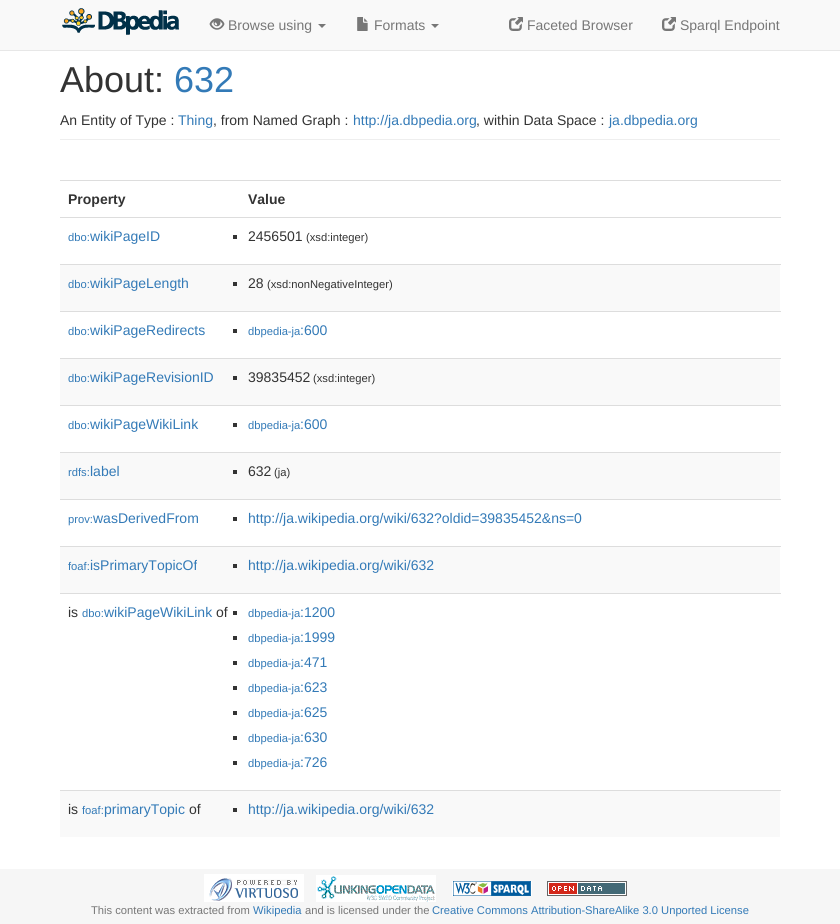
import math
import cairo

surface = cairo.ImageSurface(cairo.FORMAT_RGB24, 840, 924)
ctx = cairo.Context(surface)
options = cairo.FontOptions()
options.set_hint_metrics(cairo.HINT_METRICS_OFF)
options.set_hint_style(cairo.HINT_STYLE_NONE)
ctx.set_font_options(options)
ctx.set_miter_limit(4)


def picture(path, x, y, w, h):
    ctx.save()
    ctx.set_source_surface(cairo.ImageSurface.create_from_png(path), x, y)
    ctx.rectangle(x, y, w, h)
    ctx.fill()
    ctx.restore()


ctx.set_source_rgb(1, 1, 1)
ctx.paint()
ctx.set_source_rgb(0.973, 0.973, 0.973)
ctx.rectangle(0, 0, 840, 50)
ctx.fill()
ctx.set_source_rgb(0.906, 0.906, 0.906)
ctx.rectangle(0, 50, 840, 1)
ctx.fill()
picture("img1.png", 62, 8, 117, 27)
picture("img2.png", 209, 18, 16, 12)
ctx.select_font_face("Liberation Sans")
ctx.set_font_size(14)
ctx.set_source_rgb(0.467, 0.467, 0.467)
ctx.move_to(228, 30)
ctx.show_text("Browse using")
ctx.new_path()
ctx.move_to(318, 24)
ctx.line_to(326, 24)
ctx.line_to(322, 28)
ctx.close_path()
ctx.fill()
picture("img3.png", 357, 17, 11, 14)
ctx.move_to(374, 30)
ctx.show_text("Formats")
ctx.new_path()
ctx.move_to(431, 24)
ctx.line_to(439, 24)
ctx.line_to(435, 28)
ctx.close_path()
ctx.fill()
picture("img4.png", 509, 17, 14, 14)
ctx.move_to(527, 30)
ctx.show_text("Faceted Browser")
picture("img4.png", 662, 17, 14, 14)
ctx.move_to(680, 30)
ctx.show_text("Sparql Endpoint")
ctx.set_source_rgb(0.933, 0.933, 0.933)
ctx.rectangle(60, 139, 720, 1)
ctx.fill()
ctx.set_font_size(36)
ctx.set_source_rgb(0.2, 0.2, 0.2)
ctx.move_to(60, 92)
ctx.show_text("About:")
ctx.set_source_rgb(0.2, 0.478, 0.718)
ctx.move_to(174, 92)
ctx.show_text("632")
ctx.set_font_size(14)
ctx.set_source_rgb(0.2, 0.2, 0.2)
ctx.move_to(60, 125)
ctx.show_text("An Entity of Type :")
ctx.set_source_rgb(0.2, 0.478, 0.718)
ctx.move_to(178, 125)
ctx.show_text("Thing")
ctx.set_source_rgb(0.2, 0.2, 0.2)
ctx.move_to(213, 125)
ctx.show_text(", from Named Graph :")
ctx.set_source_rgb(0.2, 0.478, 0.718)
ctx.move_to(353, 125)
ctx.show_text("http://ja.dbpedia.org")
ctx.set_source_rgb(0.2, 0.2, 0.2)
ctx.move_to(476, 125)
ctx.show_text(", within Data Space :")
ctx.set_source_rgb(0.2, 0.478, 0.718)
ctx.move_to(609, 125)
ctx.show_text("ja.dbpedia.org")
ctx.select_font_face("Liberation Sans", cairo.FONT_SLANT_NORMAL, cairo.FONT_WEIGHT_BOLD)
ctx.set_source_rgb(0.2, 0.2, 0.2)
ctx.move_to(68, 204)
ctx.show_text("Property")
ctx.set_source_rgb(0.867, 0.867, 0.867)
ctx.rectangle(60, 180, 721, 1)
ctx.fill()
ctx.set_source_rgb(0.2, 0.2, 0.2)
ctx.move_to(248, 204)
ctx.show_text("Value")
ctx.select_font_face("Liberation Sans")
ctx.set_font_size(11.2)
ctx.set_source_rgb(0.2, 0.478, 0.718)
ctx.move_to(68, 241)
ctx.show_text("dbo:")
ctx.set_font_size(14)
ctx.move_to(90, 241)
ctx.show_text("wikiPageID")
ctx.set_source_rgb(0.867, 0.867, 0.867)
ctx.rectangle(60, 217, 721, 1)
ctx.fill()
ctx.set_source_rgb(0.2, 0.2, 0.2)
ctx.rectangle(233, 235, 4, 4)
ctx.fill()
ctx.move_to(248, 241)
ctx.show_text("2456501")
ctx.set_font_size(11.2)
ctx.move_to(306, 241)
ctx.show_text("(xsd:integer)")
ctx.set_source_rgb(0.976, 0.976, 0.976)
ctx.rectangle(60, 265, 720, 46)
ctx.fill()
ctx.set_source_rgb(0.2, 0.478, 0.718)
ctx.move_to(68, 288)
ctx.show_text("dbo:")
ctx.set_font_size(14)
ctx.move_to(90, 288)
ctx.show_text("wikiPageLength")
ctx.set_source_rgb(0.867, 0.867, 0.867)
ctx.rectangle(60, 264, 721, 1)
ctx.fill()
ctx.set_source_rgb(0.2, 0.2, 0.2)
ctx.rectangle(233, 282, 4, 4)
ctx.fill()
ctx.move_to(248, 288)
ctx.show_text("28")
ctx.set_font_size(11.2)
ctx.move_to(267, 288)
ctx.show_text("(xsd:nonNegativeInteger)")
ctx.set_source_rgb(0.2, 0.478, 0.718)
ctx.move_to(68, 335)
ctx.show_text("dbo:")
ctx.set_font_size(14)
ctx.move_to(90, 335)
ctx.show_text("wikiPageRedirects")
ctx.set_source_rgb(0.867, 0.867, 0.867)
ctx.rectangle(60, 311, 721, 1)
ctx.fill()
ctx.set_source_rgb(0.2, 0.2, 0.2)
ctx.rectangle(233, 329, 4, 4)
ctx.fill()
ctx.set_font_size(11.2)
ctx.set_source_rgb(0.2, 0.478, 0.718)
ctx.move_to(248, 335)
ctx.show_text("dbpedia-ja")
ctx.set_font_size(14)
ctx.move_to(300, 335)
ctx.show_text(":600")
ctx.set_source_rgb(0.976, 0.976, 0.976)
ctx.rectangle(60, 359, 720, 46)
ctx.fill()
ctx.set_font_size(11.2)
ctx.set_source_rgb(0.2, 0.478, 0.718)
ctx.move_to(68, 382)
ctx.show_text("dbo:")
ctx.set_font_size(14)
ctx.move_to(90, 382)
ctx.show_text("wikiPageRevisionID")
ctx.set_source_rgb(0.867, 0.867, 0.867)
ctx.rectangle(60, 358, 721, 1)
ctx.fill()
ctx.set_source_rgb(0.2, 0.2, 0.2)
ctx.rectangle(233, 376, 4, 4)
ctx.fill()
ctx.move_to(248, 382)
ctx.show_text("39835452")
ctx.set_font_size(11.2)
ctx.move_to(313, 382)
ctx.show_text("(xsd:integer)")
ctx.set_source_rgb(0.2, 0.478, 0.718)
ctx.move_to(68, 429)
ctx.show_text("dbo:")
ctx.set_font_size(14)
ctx.move_to(90, 429)
ctx.show_text("wikiPageWikiLink")
ctx.set_source_rgb(0.867, 0.867, 0.867)
ctx.rectangle(60, 405, 721, 1)
ctx.fill()
ctx.set_source_rgb(0.2, 0.2, 0.2)
ctx.rectangle(233, 423, 4, 4)
ctx.fill()
ctx.set_font_size(11.2)
ctx.set_source_rgb(0.2, 0.478, 0.718)
ctx.move_to(248, 429)
ctx.show_text("dbpedia-ja")
ctx.set_font_size(14)
ctx.move_to(300, 429)
ctx.show_text(":600")
ctx.set_source_rgb(0.976, 0.976, 0.976)
ctx.rectangle(60, 453, 720, 46)
ctx.fill()
ctx.set_font_size(11.2)
ctx.set_source_rgb(0.2, 0.478, 0.718)
ctx.move_to(68, 476)
ctx.show_text("rdfs:")
ctx.set_font_size(14)
ctx.move_to(90, 476)
ctx.show_text("label")
ctx.set_source_rgb(0.867, 0.867, 0.867)
ctx.rectangle(60, 452, 721, 1)
ctx.fill()
ctx.set_source_rgb(0.2, 0.2, 0.2)
ctx.rectangle(233, 470, 4, 4)
ctx.fill()
ctx.move_to(248, 476)
ctx.show_text("632")
ctx.set_font_size(11.2)
ctx.move_to(274, 476)
ctx.show_text("(ja)")
ctx.set_source_rgb(0.2, 0.478, 0.718)
ctx.move_to(68, 523)
ctx.show_text("prov:")
ctx.set_font_size(14)
ctx.move_to(93, 523)
ctx.show_text("wasDerivedFrom")
ctx.set_source_rgb(0.867, 0.867, 0.867)
ctx.rectangle(60, 499, 721, 1)
ctx.fill()
ctx.set_source_rgb(0.2, 0.2, 0.2)
ctx.rectangle(233, 517, 4, 4)
ctx.fill()
ctx.set_source_rgb(0.2, 0.478, 0.718)
ctx.move_to(248, 523)
ctx.show_text("http://ja.wikipedia.org/wiki/632?oldid=39835452&ns=0")
ctx.set_source_rgb(0.976, 0.976, 0.976)
ctx.rectangle(60, 547, 720, 46)
ctx.fill()
ctx.set_font_size(11.2)
ctx.set_source_rgb(0.2, 0.478, 0.718)
ctx.move_to(68, 570)
ctx.show_text("foaf:")
ctx.set_font_size(14)
ctx.move_to(90, 570)
ctx.show_text("isPrimaryTopicOf")
ctx.set_source_rgb(0.867, 0.867, 0.867)
ctx.rectangle(60, 546, 721, 1)
ctx.fill()
ctx.set_source_rgb(0.2, 0.2, 0.2)
ctx.rectangle(233, 564, 4, 4)
ctx.fill()
ctx.set_source_rgb(0.2, 0.478, 0.718)
ctx.move_to(248, 570)
ctx.show_text("http://ja.wikipedia.org/wiki/632")
ctx.set_source_rgb(0.2, 0.2, 0.2)
ctx.move_to(68, 617)
ctx.show_text("is")
ctx.set_font_size(11.2)
ctx.set_source_rgb(0.2, 0.478, 0.718)
ctx.move_to(82, 617)
ctx.show_text("dbo:")
ctx.set_font_size(14)
ctx.move_to(104, 617)
ctx.show_text("wikiPageWikiLink")
ctx.set_source_rgb(0.2, 0.2, 0.2)
ctx.move_to(216, 617)
ctx.show_text("of")
ctx.set_source_rgb(0.867, 0.867, 0.867)
ctx.rectangle(60, 593, 721, 1)
ctx.fill()
ctx.set_source_rgb(0.2, 0.2, 0.2)
ctx.rectangle(233, 611, 4, 4)
ctx.fill()
ctx.set_font_size(11.2)
ctx.set_source_rgb(0.2, 0.478, 0.718)
ctx.move_to(248, 617)
ctx.show_text("dbpedia-ja")
ctx.set_font_size(14)
ctx.move_to(300, 617)
ctx.show_text(":1200")
ctx.set_source_rgb(0.2, 0.2, 0.2)
ctx.rectangle(233, 636, 4, 4)
ctx.fill()
ctx.set_font_size(11.2)
ctx.set_source_rgb(0.2, 0.478, 0.718)
ctx.move_to(248, 642)
ctx.show_text("dbpedia-ja")
ctx.set_font_size(14)
ctx.move_to(300, 642)
ctx.show_text(":1999")
ctx.set_source_rgb(0.2, 0.2, 0.2)
ctx.rectangle(233, 661, 4, 4)
ctx.fill()
ctx.set_font_size(11.2)
ctx.set_source_rgb(0.2, 0.478, 0.718)
ctx.move_to(248, 667)
ctx.show_text("dbpedia-ja")
ctx.set_font_size(14)
ctx.move_to(300, 667)
ctx.show_text(":471")
ctx.set_source_rgb(0.2, 0.2, 0.2)
ctx.rectangle(233, 686, 4, 4)
ctx.fill()
ctx.set_font_size(11.2)
ctx.set_source_rgb(0.2, 0.478, 0.718)
ctx.move_to(248, 692)
ctx.show_text("dbpedia-ja")
ctx.set_font_size(14)
ctx.move_to(300, 692)
ctx.show_text(":623")
ctx.set_source_rgb(0.2, 0.2, 0.2)
ctx.rectangle(233, 711, 4, 4)
ctx.fill()
ctx.set_font_size(11.2)
ctx.set_source_rgb(0.2, 0.478, 0.718)
ctx.move_to(248, 717)
ctx.show_text("dbpedia-ja")
ctx.set_font_size(14)
ctx.move_to(300, 717)
ctx.show_text(":625")
ctx.set_source_rgb(0.2, 0.2, 0.2)
ctx.rectangle(233, 736, 4, 4)
ctx.fill()
ctx.set_font_size(11.2)
ctx.set_source_rgb(0.2, 0.478, 0.718)
ctx.move_to(248, 742)
ctx.show_text("dbpedia-ja")
ctx.set_font_size(14)
ctx.move_to(300, 742)
ctx.show_text(":630")
ctx.set_source_rgb(0.2, 0.2, 0.2)
ctx.rectangle(233, 761, 4, 4)
ctx.fill()
ctx.set_font_size(11.2)
ctx.set_source_rgb(0.2, 0.478, 0.718)
ctx.move_to(248, 767)
ctx.show_text("dbpedia-ja")
ctx.set_font_size(14)
ctx.move_to(300, 767)
ctx.show_text(":726")
ctx.set_source_rgb(0.976, 0.976, 0.976)
ctx.rectangle(60, 791, 720, 46)
ctx.fill()
ctx.set_source_rgb(0.2, 0.2, 0.2)
ctx.move_to(68, 814)
ctx.show_text("is")
ctx.set_font_size(11.2)
ctx.set_source_rgb(0.2, 0.478, 0.718)
ctx.move_to(82, 814)
ctx.show_text("foaf:")
ctx.set_font_size(14)
ctx.move_to(104, 814)
ctx.show_text("primaryTopic")
ctx.set_source_rgb(0.2, 0.2, 0.2)
ctx.move_to(189, 814)
ctx.show_text("of")
ctx.set_source_rgb(0.867, 0.867, 0.867)
ctx.rectangle(60, 790, 721, 1)
ctx.fill()
ctx.set_source_rgb(0.2, 0.2, 0.2)
ctx.rectangle(233, 808, 4, 4)
ctx.fill()
ctx.set_source_rgb(0.2, 0.478, 0.718)
ctx.move_to(248, 814)
ctx.show_text("http://ja.wikipedia.org/wiki/632")
ctx.set_source_rgb(0.961, 0.961, 0.961)
ctx.rectangle(0, 869, 840, 55)
ctx.fill()
picture("img5.png", 204, 874, 100, 28)
picture("img6.png", 316, 875, 120, 27)
picture("img7.png", 452, 881, 80, 15)
picture("img8.png", 547, 881, 80, 15)
ctx.set_font_size(11.2)
ctx.set_source_rgb(0.467, 0.467, 0.467)
ctx.move_to(91, 914)
ctx.show_text("This content was extracted from")
ctx.set_source_rgb(0.2, 0.478, 0.718)
ctx.move_to(253, 914)
ctx.show_text("Wikipedia")
ctx.set_source_rgb(0.467, 0.467, 0.467)
ctx.move_to(305, 914)
ctx.show_text("and is licensed under the")
ctx.set_source_rgb(0.2, 0.478, 0.718)
ctx.move_to(432, 914)
ctx.show_text("Creative Commons Attribution-ShareAlike 3.0 Unported License")
surface.write_to_png("page.png")
